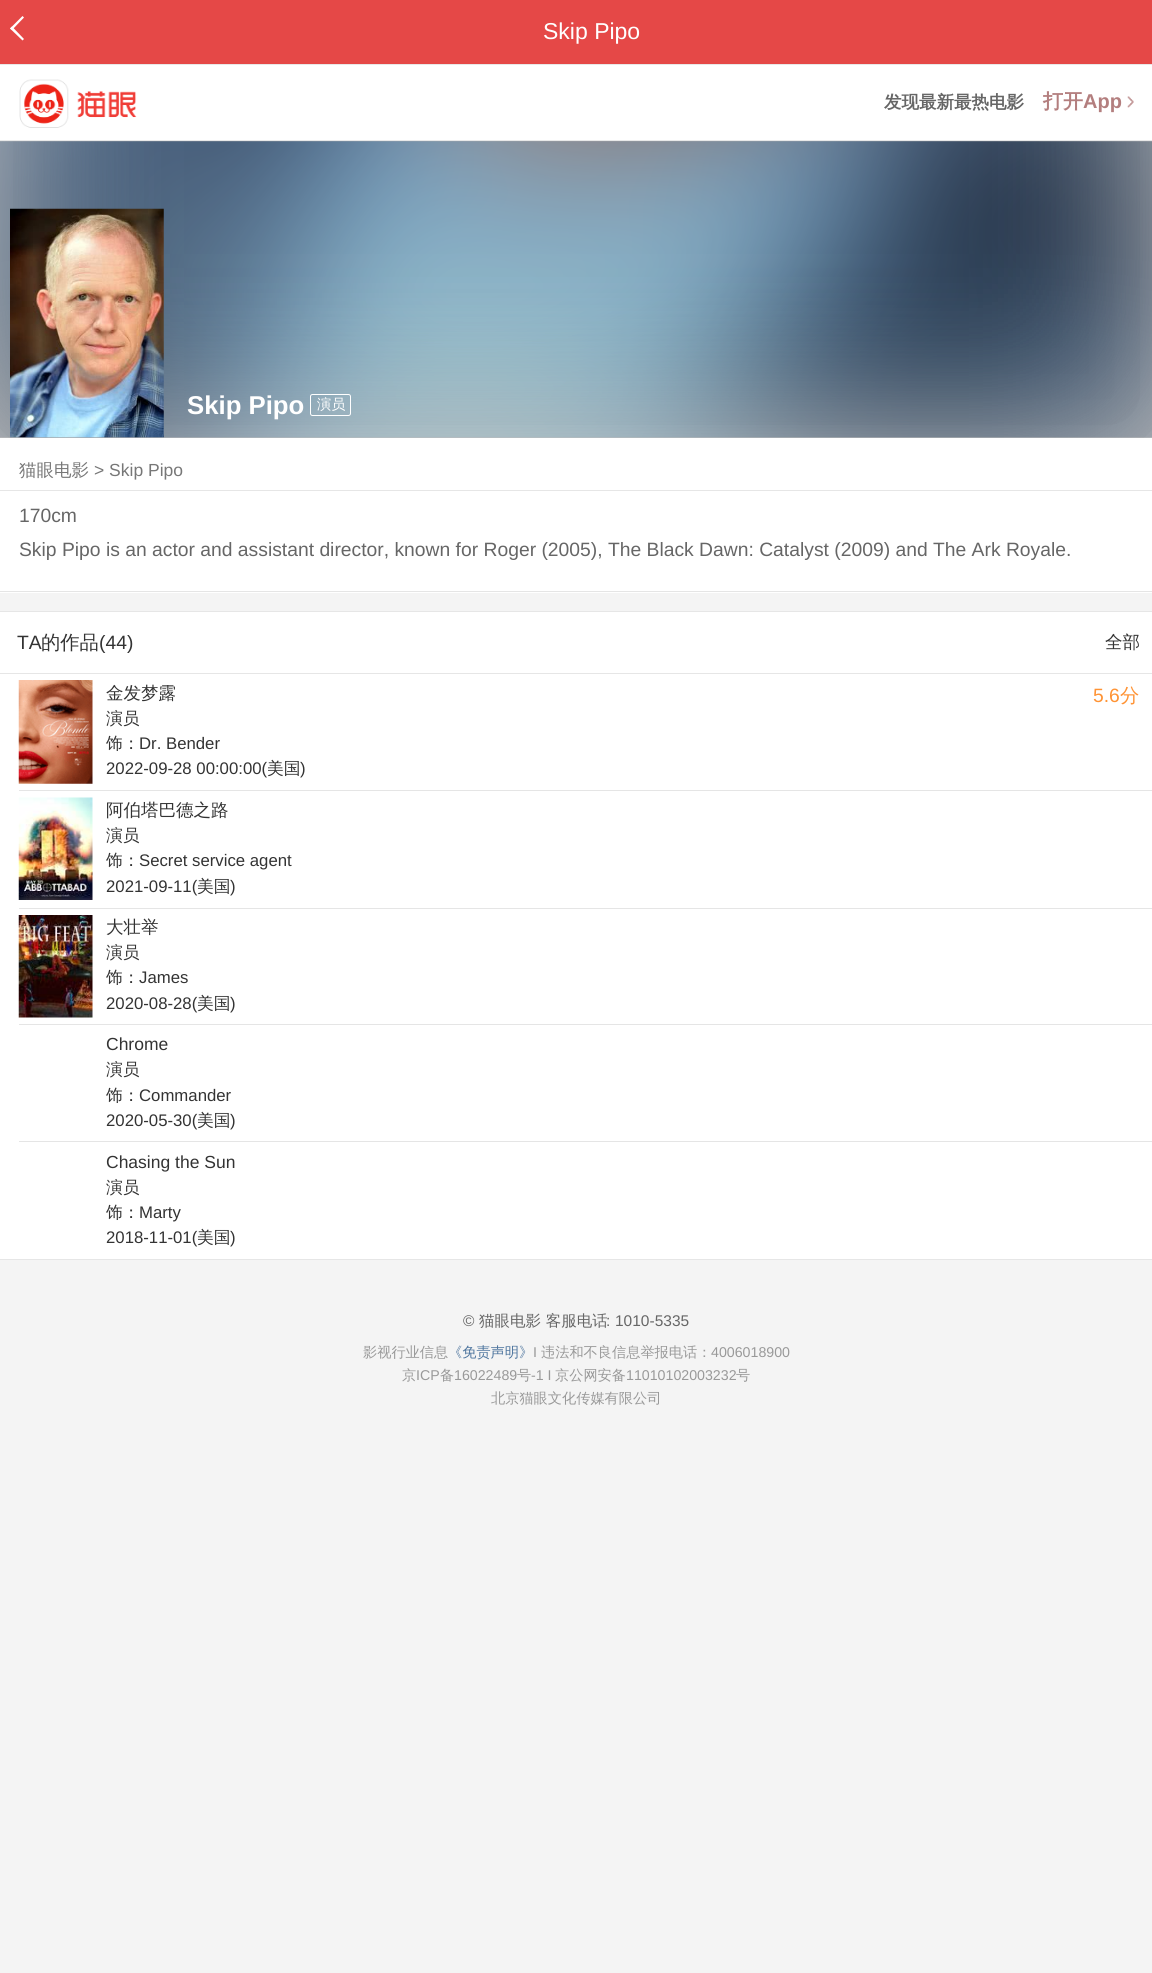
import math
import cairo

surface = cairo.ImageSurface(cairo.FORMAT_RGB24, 1152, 1973)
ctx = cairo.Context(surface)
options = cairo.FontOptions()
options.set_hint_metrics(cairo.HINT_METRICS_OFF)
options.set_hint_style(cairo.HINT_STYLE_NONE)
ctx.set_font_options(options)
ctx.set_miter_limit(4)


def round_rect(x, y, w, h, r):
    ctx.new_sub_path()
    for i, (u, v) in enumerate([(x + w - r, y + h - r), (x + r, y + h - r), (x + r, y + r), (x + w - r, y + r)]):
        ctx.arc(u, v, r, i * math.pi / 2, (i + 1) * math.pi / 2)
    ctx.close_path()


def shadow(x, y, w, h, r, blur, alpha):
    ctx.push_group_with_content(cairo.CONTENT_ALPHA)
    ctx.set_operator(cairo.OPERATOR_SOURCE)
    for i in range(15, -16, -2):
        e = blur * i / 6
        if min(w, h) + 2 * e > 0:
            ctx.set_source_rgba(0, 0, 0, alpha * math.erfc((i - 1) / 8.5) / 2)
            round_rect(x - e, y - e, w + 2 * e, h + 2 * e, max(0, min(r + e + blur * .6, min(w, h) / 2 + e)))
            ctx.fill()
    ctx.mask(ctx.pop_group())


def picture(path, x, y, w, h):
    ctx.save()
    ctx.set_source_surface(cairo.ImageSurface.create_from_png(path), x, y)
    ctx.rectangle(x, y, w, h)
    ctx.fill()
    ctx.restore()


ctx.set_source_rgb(0.957, 0.957, 0.957)
ctx.paint()
ctx.set_source_rgb(0.898, 0.282, 0.278)
ctx.rectangle(0, 0, 1152, 64)
ctx.fill()
ctx.set_source_rgb(1, 1, 1)
ctx.rectangle(0, 438, 1152, 155)
ctx.fill()
ctx.set_source_rgb(0.8, 0.8, 0.8)
ctx.rectangle(0, 141, 1152, 297)
ctx.fill()
ctx.set_source_rgb(0.898, 0.898, 0.898)
ctx.rectangle(0, 591, 1152, 1)
ctx.fill()
ctx.set_source_rgb(1, 1, 1)
ctx.rectangle(0, 612, 1152, 647)
ctx.fill()
ctx.set_source_rgb(0.902, 0.902, 0.902)
ctx.rectangle(0, 611, 1152, 1)
ctx.fill()
ctx.save()
ctx.rectangle(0, 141, 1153, 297)
ctx.clip()
ctx.set_source_rgb(0.678, 0.678, 0.678)
shadow(0, -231, 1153, 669, 0, 77, 1)
ctx.restore()
ctx.set_source_rgb(1, 1, 1)
ctx.new_path()
ctx.move_to(12, 26.5)
ctx.line_to(24, 39)
ctx.line_to(22.5, 40.5)
ctx.line_to(10, 28.5)
ctx.close_path()
ctx.fill()
ctx.new_path()
ctx.move_to(22.5, 16)
ctx.line_to(24, 17.5)
ctx.line_to(12, 30)
ctx.line_to(10, 28.5)
ctx.close_path()
ctx.fill()
ctx.select_font_face("Liberation Sans")
ctx.set_font_size(23)
ctx.move_to(543, 39)
ctx.show_text("Skip Pipo")
ctx.rectangle(0, 65, 1152, 75)
ctx.fill()
ctx.set_source_rgb(0.91, 0.91, 0.91)
ctx.rectangle(0, 64, 1152, 1)
ctx.fill()
ctx.rectangle(0, 140, 1152, 1)
ctx.fill()
picture("img1.png", 19, 79, 118, 49)
ctx.select_font_face("WenQuanYi Zen Hei", cairo.FONT_SLANT_NORMAL, cairo.FONT_WEIGHT_BOLD)
ctx.set_font_size(17.5)
ctx.set_source_rgb(0.4, 0.4, 0.4)
ctx.move_to(884, 108)
ctx.show_text("发现最新最热电影")
ctx.set_font_size(20)
ctx.set_source_rgb(0.702, 0.494, 0.494)
ctx.move_to(1043, 108)
ctx.show_text("打开")
ctx.select_font_face("Liberation Sans", cairo.FONT_SLANT_NORMAL, cairo.FONT_WEIGHT_BOLD)
ctx.move_to(1083, 108)
ctx.show_text("App")
picture("img2.png", 1127, 96, 7, 12)
picture("img3.png", 0, 141, 1152, 297)
picture("img4.png", 10, 208, 154, 230)
ctx.set_font_size(25.75)
ctx.set_source_rgb(1, 1, 1)
ctx.move_to(187, 414)
ctx.show_text("Skip Pipo")
round_rect(310.5, 394.5, 40, 21, 2)
ctx.set_line_width(1)
ctx.stroke()
ctx.select_font_face("WenQuanYi Zen Hei Medium")
ctx.set_font_size(14.2)
ctx.move_to(317, 409)
ctx.show_text("演员")
ctx.set_font_size(17.5)
ctx.set_source_rgb(0.467, 0.467, 0.467)
ctx.move_to(19, 476)
ctx.show_text("猫眼电影")
ctx.select_font_face("Liberation Sans")
ctx.move_to(94, 476)
ctx.show_text("> Skip Pipo")
ctx.set_source_rgb(0.902, 0.902, 0.902)
ctx.rectangle(0, 490, 1152, 1)
ctx.fill()
ctx.set_font_size(19.3)
ctx.set_source_rgb(0.4, 0.4, 0.4)
ctx.move_to(19, 522)
ctx.show_text("170cm")
ctx.move_to(19, 556)
ctx.show_text("Skip Pipo is an actor and assistant director, known for Roger (2005), The Black Dawn: Catalyst (2009) and The Ark Royale.")
ctx.set_source_rgb(0.902, 0.902, 0.902)
ctx.rectangle(0, 1259, 1152, 1)
ctx.fill()
ctx.rectangle(0, 673, 1152, 1)
ctx.fill()
ctx.set_source_rgb(0.2, 0.2, 0.2)
ctx.move_to(17, 649)
ctx.show_text("TA")
ctx.select_font_face("WenQuanYi Zen Hei Medium")
ctx.move_to(41, 649)
ctx.show_text("的作品")
ctx.select_font_face("Liberation Sans")
ctx.move_to(99, 649)
ctx.show_text("(44)")
ctx.select_font_face("WenQuanYi Zen Hei Medium")
ctx.set_font_size(17.5)
ctx.move_to(1105, 648)
ctx.show_text("全部")
ctx.set_source_rgb(0.898, 0.898, 0.898)
ctx.rectangle(19, 790, 1133, 1)
ctx.fill()
picture("img5.png", 18, 680, 75, 104)
ctx.set_source_rgb(0.2, 0.2, 0.2)
ctx.move_to(106, 699)
ctx.show_text("金发梦露")
ctx.select_font_face("Liberation Sans")
ctx.set_font_size(19.3)
ctx.set_source_rgb(1, 0.576, 0.204)
ctx.move_to(1093, 702)
ctx.show_text("5.6")
ctx.select_font_face("WenQuanYi Zen Hei Medium")
ctx.move_to(1120, 702)
ctx.show_text("分")
ctx.set_font_size(16.75)
ctx.set_source_rgb(0.2, 0.2, 0.2)
ctx.move_to(106, 724)
ctx.show_text("演员")
ctx.move_to(106, 749)
ctx.show_text("饰：")
ctx.select_font_face("Liberation Sans")
ctx.move_to(139, 749)
ctx.show_text("Dr. Bender")
ctx.move_to(106, 774)
ctx.show_text("2022-09-28 00:00:00(")
ctx.select_font_face("WenQuanYi Zen Hei Medium")
ctx.move_to(267, 774)
ctx.show_text("美国")
ctx.select_font_face("Liberation Sans")
ctx.move_to(300, 774)
ctx.show_text(")")
ctx.set_source_rgb(0.898, 0.898, 0.898)
ctx.rectangle(19, 908, 1133, 1)
ctx.fill()
picture("img6.png", 18, 797, 75, 103)
ctx.select_font_face("WenQuanYi Zen Hei Medium")
ctx.set_font_size(17.5)
ctx.set_source_rgb(0.2, 0.2, 0.2)
ctx.move_to(106, 816)
ctx.show_text("阿伯塔巴德之路")
ctx.set_font_size(16.75)
ctx.move_to(106, 841)
ctx.show_text("演员")
ctx.move_to(106, 866)
ctx.show_text("饰：")
ctx.select_font_face("Liberation Sans")
ctx.move_to(139, 866)
ctx.show_text("Secret service agent")
ctx.move_to(106, 892)
ctx.show_text("2021-09-11(")
ctx.select_font_face("WenQuanYi Zen Hei Medium")
ctx.move_to(197, 892)
ctx.show_text("美国")
ctx.select_font_face("Liberation Sans")
ctx.move_to(230, 892)
ctx.show_text(")")
ctx.set_source_rgb(0.898, 0.898, 0.898)
ctx.rectangle(19, 1024, 1133, 1)
ctx.fill()
picture("img7.png", 18, 915, 75, 103)
ctx.select_font_face("WenQuanYi Zen Hei Medium")
ctx.set_font_size(17.5)
ctx.set_source_rgb(0.2, 0.2, 0.2)
ctx.move_to(106, 933)
ctx.show_text("大壮举")
ctx.set_font_size(16.75)
ctx.move_to(106, 958)
ctx.show_text("演员")
ctx.move_to(106, 983)
ctx.show_text("饰：")
ctx.select_font_face("Liberation Sans")
ctx.move_to(139, 983)
ctx.show_text("James")
ctx.move_to(106, 1009)
ctx.show_text("2020-08-28(")
ctx.select_font_face("WenQuanYi Zen Hei Medium")
ctx.move_to(197, 1009)
ctx.show_text("美国")
ctx.select_font_face("Liberation Sans")
ctx.move_to(230, 1009)
ctx.show_text(")")
ctx.set_source_rgb(0.898, 0.898, 0.898)
ctx.rectangle(19, 1141, 1133, 1)
ctx.fill()
ctx.set_font_size(17.5)
ctx.set_source_rgb(0.2, 0.2, 0.2)
ctx.move_to(106, 1050)
ctx.show_text("Chrome")
ctx.select_font_face("WenQuanYi Zen Hei Medium")
ctx.set_font_size(16.75)
ctx.move_to(106, 1075)
ctx.show_text("演员")
ctx.move_to(106, 1101)
ctx.show_text("饰：")
ctx.select_font_face("Liberation Sans")
ctx.move_to(139, 1101)
ctx.show_text("Commander")
ctx.move_to(106, 1126)
ctx.show_text("2020-05-30(")
ctx.select_font_face("WenQuanYi Zen Hei Medium")
ctx.move_to(197, 1126)
ctx.show_text("美国")
ctx.select_font_face("Liberation Sans")
ctx.move_to(230, 1126)
ctx.show_text(")")
ctx.set_font_size(17.5)
ctx.move_to(106, 1168)
ctx.show_text("Chasing the Sun")
ctx.select_font_face("WenQuanYi Zen Hei Medium")
ctx.set_font_size(16.75)
ctx.move_to(106, 1193)
ctx.show_text("演员")
ctx.move_to(106, 1218)
ctx.show_text("饰：")
ctx.select_font_face("Liberation Sans")
ctx.move_to(139, 1218)
ctx.show_text("Marty")
ctx.move_to(106, 1243)
ctx.show_text("2018-11-01(")
ctx.select_font_face("WenQuanYi Zen Hei Medium")
ctx.move_to(197, 1243)
ctx.show_text("美国")
ctx.select_font_face("Liberation Sans")
ctx.move_to(230, 1243)
ctx.show_text(")")
ctx.set_font_size(15.5)
ctx.set_source_rgb(0.4, 0.4, 0.4)
ctx.move_to(463, 1326)
ctx.show_text("©")
ctx.select_font_face("WenQuanYi Zen Hei Medium")
ctx.move_to(479, 1326)
ctx.show_text("猫眼电影 客服电话")
ctx.select_font_face("Liberation Sans")
ctx.move_to(606, 1326)
ctx.show_text(":")
ctx.move_to(615, 1326)
ctx.show_text("1010-5335")
ctx.select_font_face("WenQuanYi Zen Hei Medium")
ctx.set_font_size(14.2)
ctx.set_source_rgb(0.6, 0.6, 0.6)
ctx.move_to(363, 1357)
ctx.show_text("影视行业信息")
ctx.set_source_rgb(0.306, 0.459, 0.62)
ctx.move_to(448, 1357)
ctx.show_text("《免责声明》")
ctx.select_font_face("Liberation Sans")
ctx.set_source_rgb(0.6, 0.6, 0.6)
ctx.move_to(533, 1357)
ctx.show_text("I")
ctx.select_font_face("WenQuanYi Zen Hei Medium")
ctx.move_to(541, 1357)
ctx.show_text("违法和不良信息举报电话：")
ctx.select_font_face("Liberation Sans")
ctx.move_to(711, 1357)
ctx.show_text("4006018900")
ctx.select_font_face("WenQuanYi Zen Hei Medium")
ctx.move_to(402, 1380)
ctx.show_text("京")
ctx.select_font_face("Liberation Sans")
ctx.move_to(416, 1380)
ctx.show_text("ICP")
ctx.select_font_face("WenQuanYi Zen Hei Medium")
ctx.move_to(440, 1380)
ctx.show_text("备")
ctx.select_font_face("Liberation Sans")
ctx.move_to(454, 1380)
ctx.show_text("16022489")
ctx.select_font_face("WenQuanYi Zen Hei Medium")
ctx.move_to(517, 1380)
ctx.show_text("号")
ctx.select_font_face("Liberation Sans")
ctx.move_to(531, 1380)
ctx.show_text("-1 I")
ctx.select_font_face("WenQuanYi Zen Hei Medium")
ctx.move_to(555, 1380)
ctx.show_text("京公网安备")
ctx.select_font_face("Liberation Sans")
ctx.move_to(626, 1380)
ctx.show_text("11010102003232")
ctx.select_font_face("WenQuanYi Zen Hei Medium")
ctx.move_to(736, 1380)
ctx.show_text("号")
ctx.move_to(491, 1403)
ctx.show_text("北京猫眼文化传媒有限公司")
surface.write_to_png("page.png")
